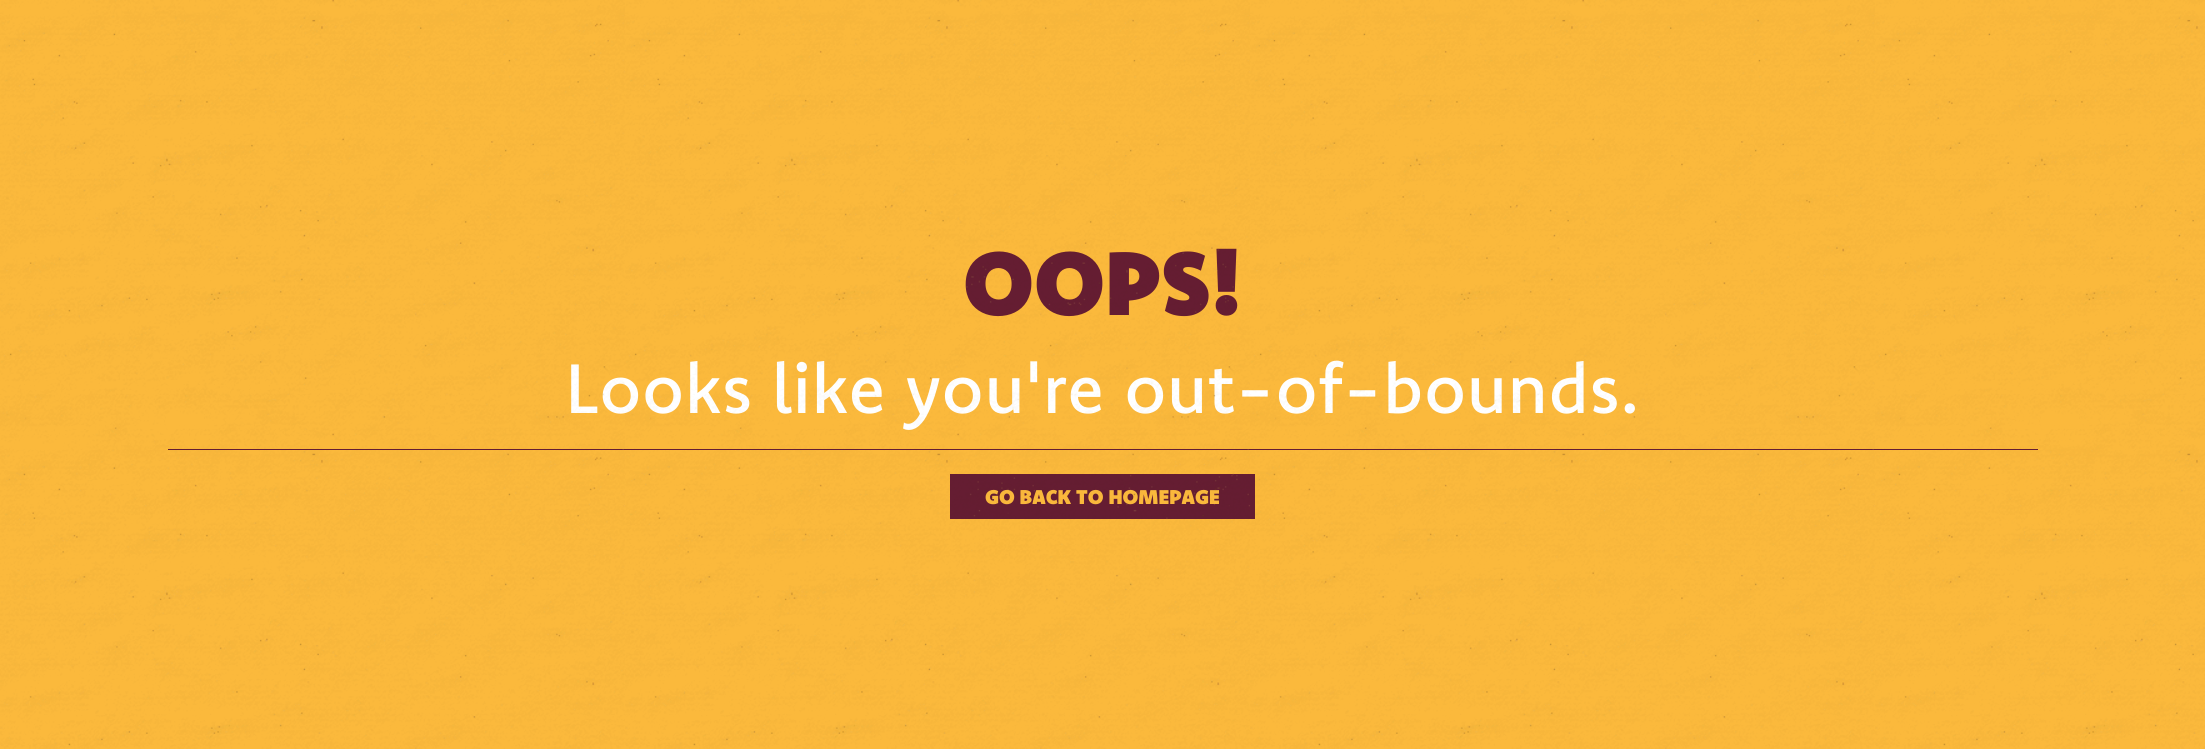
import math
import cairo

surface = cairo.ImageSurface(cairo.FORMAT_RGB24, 2205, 749)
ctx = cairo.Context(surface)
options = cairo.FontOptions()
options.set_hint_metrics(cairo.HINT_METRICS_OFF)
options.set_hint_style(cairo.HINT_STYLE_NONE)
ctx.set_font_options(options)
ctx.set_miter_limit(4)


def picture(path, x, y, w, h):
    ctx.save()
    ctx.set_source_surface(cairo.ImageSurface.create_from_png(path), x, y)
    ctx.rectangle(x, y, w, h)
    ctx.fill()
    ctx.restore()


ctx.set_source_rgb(0.984, 0.725, 0.235)
ctx.paint()
ctx.select_font_face("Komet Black")
ctx.set_font_size(90)
ctx.set_source_rgb(0.396, 0.114, 0.196)
ctx.move_to(963, 315)
ctx.show_text("OOPS!")
ctx.select_font_face("Komet Medium")
ctx.set_font_size(70)
ctx.set_source_rgb(1, 1, 1)
ctx.move_to(565, 413)
ctx.show_text("Looks like you're out-of-bounds.")
ctx.set_source_rgb(0.396, 0.114, 0.196)
ctx.rectangle(168, 449, 1870, 1)
ctx.fill()
ctx.rectangle(950, 474, 305, 45)
ctx.fill()
ctx.select_font_face("Komet Black")
ctx.set_font_size(20)
ctx.set_source_rgb(0.984, 0.725, 0.235)
ctx.move_to(985, 504)
ctx.show_text("GO BACK TO HOMEPAGE")
picture("img1.png", 0, 0, 2205, 749)
surface.write_to_png("page.png")
